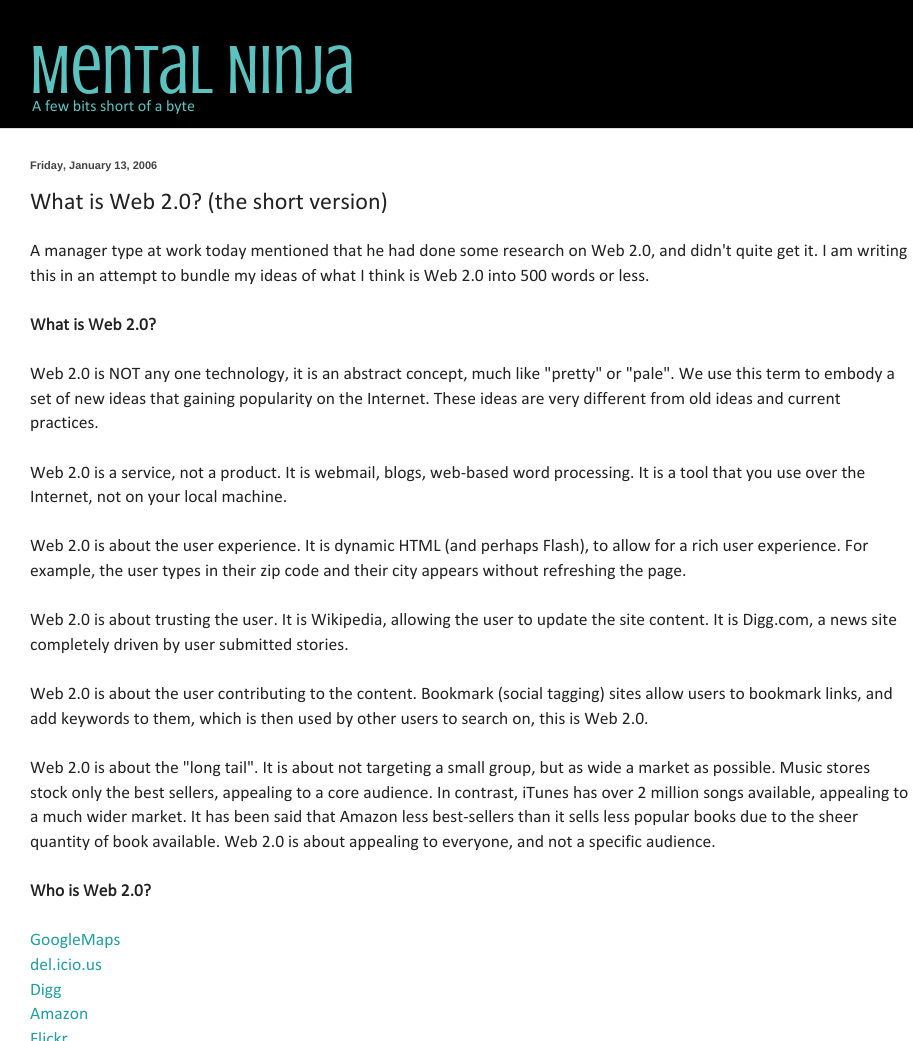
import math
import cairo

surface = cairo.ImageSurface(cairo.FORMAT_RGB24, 913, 1041)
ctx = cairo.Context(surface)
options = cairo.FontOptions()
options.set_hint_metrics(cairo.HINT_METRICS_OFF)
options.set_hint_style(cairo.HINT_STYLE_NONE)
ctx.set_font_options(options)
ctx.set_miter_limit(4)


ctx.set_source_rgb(0, 0, 0)
ctx.paint()
ctx.select_font_face("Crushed")
ctx.set_font_size(70)
ctx.set_source_rgb(0.361, 0.761, 0.753)
ctx.move_to(30, 93)
ctx.show_text("Mental Ninja")
ctx.select_font_face("Calibri")
ctx.set_font_size(16)
ctx.move_to(32, 111)
ctx.show_text("A few bits short of a byte")
ctx.set_source_rgb(1, 1, 1)
ctx.rectangle(0, 129, 913, 912)
ctx.fill()
ctx.set_source_rgb(0.867, 0.867, 0.867)
ctx.rectangle(0, 128, 913, 1)
ctx.fill()
ctx.select_font_face("Liberation Sans", cairo.FONT_SLANT_NORMAL, cairo.FONT_WEIGHT_BOLD)
ctx.set_font_size(11)
ctx.set_source_rgb(0.263, 0.263, 0.263)
ctx.move_to(30, 169)
ctx.show_text("Friday, January 13, 2006")
ctx.select_font_face("Calibri")
ctx.set_font_size(24)
ctx.set_source_rgb(0.133, 0.133, 0.133)
ctx.move_to(30, 209)
ctx.show_text("What is Web 2.0? (the short version)")
ctx.set_font_size(17.6)
ctx.move_to(30, 256)
ctx.show_text("A manager type at work today mentioned that he had done some research on Web 2.0, and didn't quite get it. I am writing")
ctx.move_to(30, 281)
ctx.show_text("this in an attempt to bundle my ideas of what I think is Web 2.0 into 500 words or less.")
ctx.select_font_face("Calibri", cairo.FONT_SLANT_NORMAL, cairo.FONT_WEIGHT_BOLD)
ctx.move_to(30, 330)
ctx.show_text("What is Web 2.0?")
ctx.select_font_face("Calibri")
ctx.move_to(30, 379)
ctx.show_text("Web 2.0 is NOT any one technology, it is an abstract concept, much like \"pretty\" or \"pale\". We use this term to embody a")
ctx.move_to(30, 404)
ctx.show_text("set of new ideas that gaining popularity on the Internet. These ideas are very different from old ideas and current")
ctx.move_to(30, 428)
ctx.show_text("practices.")
ctx.move_to(30, 478)
ctx.show_text("Web 2.0 is a service, not a product. It is webmail, blogs, web-based word processing. It is a tool that you use over the")
ctx.move_to(30, 502)
ctx.show_text("Internet, not on your local machine.")
ctx.move_to(30, 551)
ctx.show_text("Web 2.0 is about the user experience. It is dynamic HTML (and perhaps Flash), to allow for a rich user experience. For")
ctx.move_to(30, 576)
ctx.show_text("example, the user types in their zip code and their city appears without refreshing the page.")
ctx.move_to(30, 625)
ctx.show_text("Web 2.0 is about trusting the user. It is Wikipedia, allowing the user to update the site content. It is Digg.com, a news site")
ctx.move_to(30, 650)
ctx.show_text("completely driven by user submitted stories.")
ctx.move_to(30, 699)
ctx.show_text("Web 2.0 is about the user contributing to the content. Bookmark (social tagging) sites allow users to bookmark links, and")
ctx.move_to(30, 724)
ctx.show_text("add keywords to them, which is then used by other users to search on, this is Web 2.0.")
ctx.move_to(30, 773)
ctx.show_text("Web 2.0 is about the \"long tail\". It is about not targeting a small group, but as wide a market as possible. Music stores")
ctx.move_to(30, 798)
ctx.show_text("stock only the best sellers, appealing to a core audience. In contrast, iTunes has over 2 million songs available, appealing to")
ctx.move_to(30, 822)
ctx.show_text("a much wider market. It has been said that Amazon less best-sellers than it sells less popular books due to the sheer")
ctx.move_to(30, 847)
ctx.show_text("quantity of book available. Web 2.0 is about appealing to everyone, and not a specific audience.")
ctx.select_font_face("Calibri", cairo.FONT_SLANT_NORMAL, cairo.FONT_WEIGHT_BOLD)
ctx.move_to(30, 896)
ctx.show_text("Who is Web 2.0?")
ctx.select_font_face("Calibri")
ctx.set_source_rgb(0.137, 0.62, 0.639)
ctx.move_to(30, 945)
ctx.show_text("GoogleMaps")
ctx.move_to(30, 970)
ctx.show_text("del.icio.us")
ctx.move_to(30, 995)
ctx.show_text("Digg")
ctx.move_to(30, 1019)
ctx.show_text("Amazon")
ctx.move_to(30, 1044)
ctx.show_text("Flickr")
surface.write_to_png("page.png")
